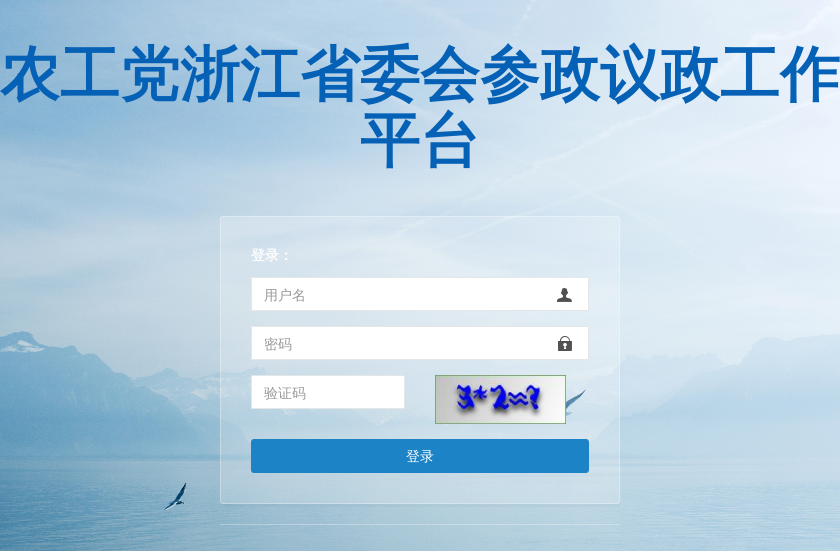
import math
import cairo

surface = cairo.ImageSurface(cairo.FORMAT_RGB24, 840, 551)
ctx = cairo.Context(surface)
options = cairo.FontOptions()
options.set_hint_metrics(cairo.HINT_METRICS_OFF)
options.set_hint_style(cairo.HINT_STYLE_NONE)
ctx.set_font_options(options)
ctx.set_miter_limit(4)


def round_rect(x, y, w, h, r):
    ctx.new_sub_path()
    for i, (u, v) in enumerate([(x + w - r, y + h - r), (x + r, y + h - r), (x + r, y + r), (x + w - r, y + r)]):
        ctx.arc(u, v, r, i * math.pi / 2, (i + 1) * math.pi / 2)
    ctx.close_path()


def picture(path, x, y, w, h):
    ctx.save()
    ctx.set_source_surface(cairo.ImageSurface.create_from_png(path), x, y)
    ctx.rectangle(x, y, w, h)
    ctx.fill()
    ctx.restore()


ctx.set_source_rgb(1, 1, 1)
ctx.paint()
picture("img1.png", 0, 0, 840, 551)
ctx.select_font_face("WenQuanYi Zen Hei", cairo.FONT_SLANT_NORMAL, cairo.FONT_WEIGHT_BOLD)
ctx.set_font_size(60)
ctx.set_source_rgb(0.02, 0.38, 0.714)
ctx.move_to(0, 95)
ctx.show_text("农工党浙江省委会参政议政工作")
ctx.move_to(360, 161)
ctx.show_text("平台")
ctx.set_source_rgba(0.047, 0.047, 0.047, 0.03)
ctx.new_path()
ctx.move_to(220, 501)
ctx.line_to(220, 504)
ctx.curve_to(220, 506, 221, 507, 223, 507)
ctx.line_to(617, 507)
ctx.curve_to(619, 507, 620, 506, 620, 504)
ctx.line_to(620, 501)
ctx.curve_to(620, 503, 619, 504, 617, 504)
ctx.line_to(223, 504)
ctx.curve_to(221, 504, 220, 503, 220, 501)
ctx.close_path()
ctx.fill()
ctx.set_source_rgba(1, 1, 1, 0.2)
round_rect(220, 216, 400, 288, 3)
ctx.fill()
round_rect(220.5, 216.5, 399, 287, 2.5)
ctx.set_source_rgba(1, 1, 1, 0.3)
ctx.set_line_width(1)
ctx.stroke()
ctx.set_font_size(14)
ctx.set_source_rgb(0.992, 0.996, 0.996)
ctx.move_to(251, 260)
ctx.show_text("登录：")
ctx.set_source_rgb(1, 1, 1)
round_rect(251, 277, 338, 34, 1)
ctx.fill()
picture("img2.png", 557, 287, 15, 15)
round_rect(251.5, 277.5, 337, 33, 0.5)
ctx.set_source_rgb(0.898, 0.902, 0.906)
ctx.stroke()
ctx.select_font_face("WenQuanYi Zen Hei Medium")
ctx.set_source_rgb(0.6, 0.6, 0.6)
ctx.move_to(264, 300)
ctx.show_text("用户名")
ctx.set_source_rgb(1, 1, 1)
round_rect(251, 326, 338, 34, 1)
ctx.fill()
picture("img3.png", 558, 336, 14, 15)
round_rect(251.5, 326.5, 337, 33, 0.5)
ctx.set_source_rgb(0.898, 0.902, 0.906)
ctx.stroke()
ctx.set_source_rgb(0.6, 0.6, 0.6)
ctx.move_to(264, 349)
ctx.show_text("密码")
ctx.set_source_rgb(1, 1, 1)
round_rect(251.5, 375.5, 153, 33, 0.5)
ctx.fill_preserve()
ctx.set_source_rgb(0.898, 0.902, 0.906)
ctx.stroke()
ctx.set_source_rgb(0.6, 0.6, 0.6)
ctx.move_to(264, 398)
ctx.show_text("验证码")
picture("img4.png", 435, 375, 131, 49)
ctx.set_source_rgb(0.11, 0.518, 0.776)
round_rect(251.5, 439.5, 337, 33, 2.5)
ctx.fill_preserve()
ctx.stroke()
ctx.set_source_rgb(0.992, 0.996, 0.996)
ctx.move_to(406, 461)
ctx.show_text("登录")
ctx.set_source_rgba(1, 1, 1, 0.3)
ctx.rectangle(220, 524, 400, 1)
ctx.fill()
surface.write_to_png("page.png")
